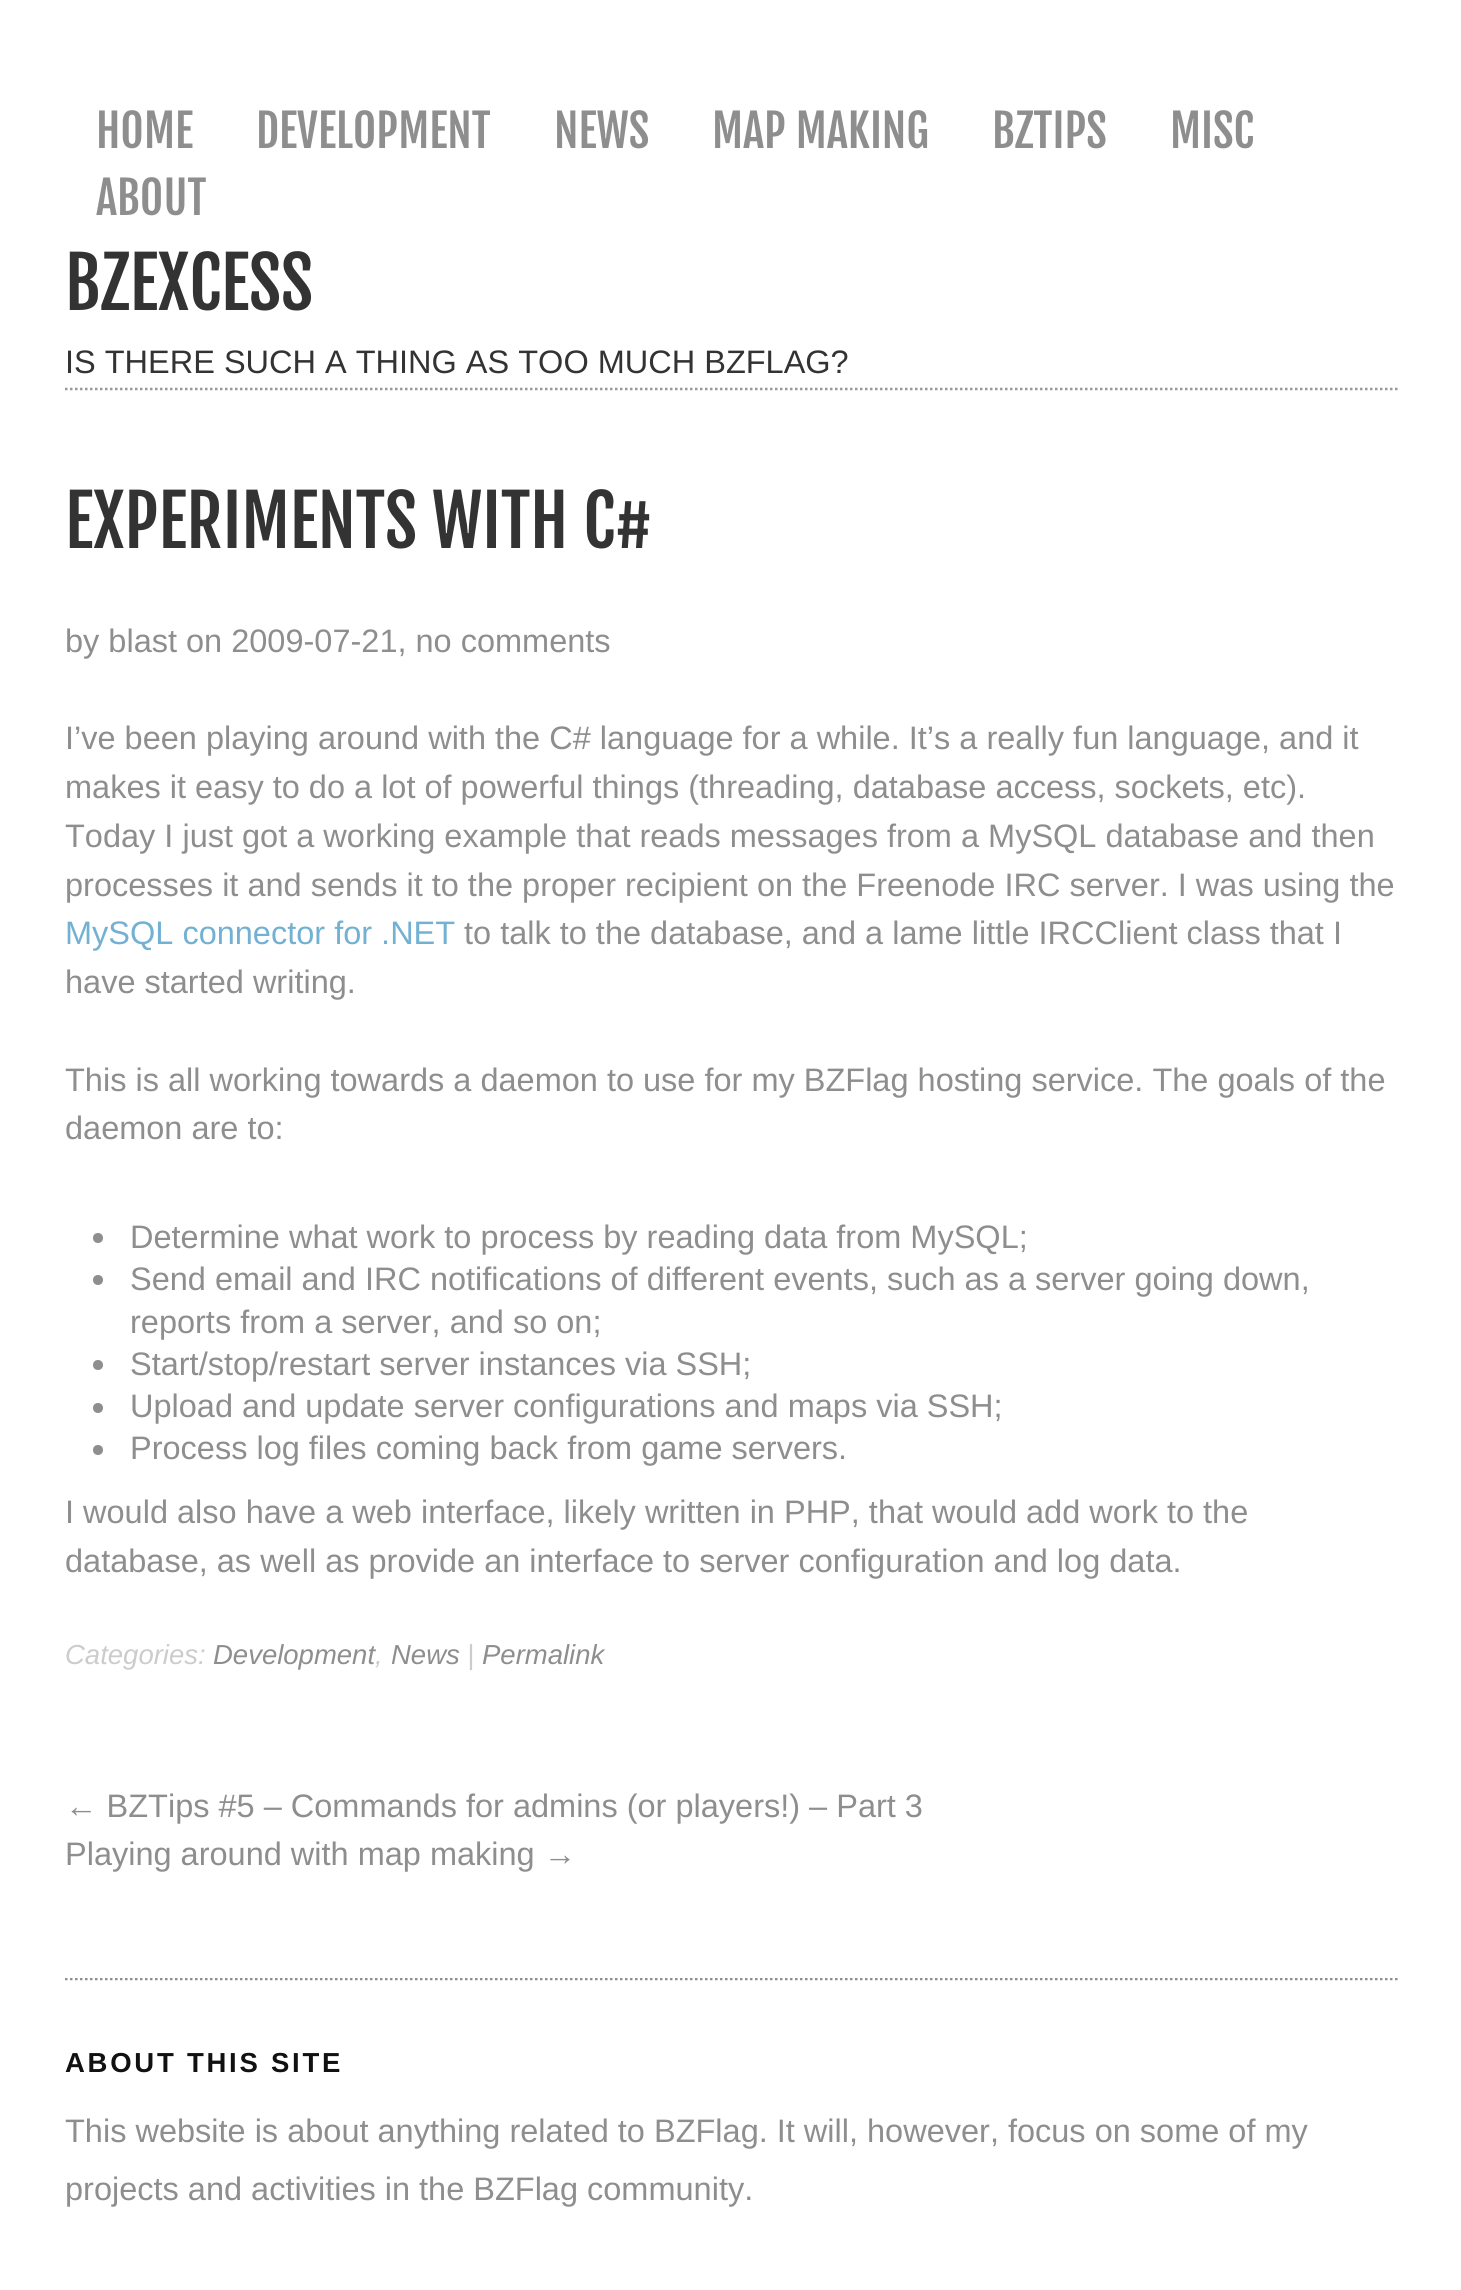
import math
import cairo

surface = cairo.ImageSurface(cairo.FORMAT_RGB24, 1461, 2290)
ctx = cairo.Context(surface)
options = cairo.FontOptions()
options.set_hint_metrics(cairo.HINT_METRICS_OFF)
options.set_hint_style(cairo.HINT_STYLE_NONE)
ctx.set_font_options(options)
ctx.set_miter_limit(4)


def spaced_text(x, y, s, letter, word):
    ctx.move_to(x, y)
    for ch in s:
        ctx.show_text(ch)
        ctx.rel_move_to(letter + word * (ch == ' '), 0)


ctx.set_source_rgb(1, 1, 1)
ctx.paint()
ctx.select_font_face("Fjalla One")
ctx.set_font_size(45)
ctx.set_source_rgb(0.557, 0.557, 0.557)
ctx.move_to(96, 148)
ctx.show_text("HOME")
ctx.move_to(256, 148)
ctx.show_text("DEVELOPMENT")
ctx.move_to(554, 148)
ctx.show_text("NEWS")
ctx.move_to(712, 148)
ctx.show_text("MAP MAKING")
ctx.move_to(992, 148)
ctx.show_text("BZTIPS")
ctx.move_to(1170, 148)
ctx.show_text("MISC")
ctx.move_to(96, 215)
ctx.show_text("ABOUT")
ctx.set_font_size(70)
ctx.set_source_rgb(0.2, 0.2, 0.2)
ctx.move_to(65, 310)
ctx.show_text("BZEXCESS")
ctx.select_font_face("Liberation Sans")
ctx.set_font_size(32.5)
ctx.move_to(65, 373)
ctx.show_text("IS THERE SUCH A THING AS TOO MUCH BZFLAG?")
ctx.new_path()
ctx.move_to(65, 389)
ctx.line_to(1397.5, 389)
ctx.set_source_rgb(0.6, 0.6, 0.6)
ctx.set_line_width(2.5)
ctx.set_dash([2.5, 2.5])
ctx.stroke()
ctx.select_font_face("Fjalla One")
ctx.set_font_size(70)
ctx.set_source_rgb(0.2, 0.2, 0.2)
ctx.move_to(65, 548)
ctx.show_text("EXPERIMENTS WITH C#")
ctx.select_font_face("Liberation Sans")
ctx.set_font_size(32.5)
ctx.set_source_rgb(0.557, 0.557, 0.557)
ctx.move_to(65, 652)
ctx.show_text("by blast on 2009-07-21, no comments")
ctx.move_to(65, 749)
ctx.show_text("I’ve been playing around with the C# language for a while. It’s a really fun language, and it")
ctx.move_to(65, 798)
ctx.show_text("makes it easy to do a lot of powerful things (threading, database access, sockets, etc).")
ctx.move_to(65, 847)
ctx.show_text("Today I just got a working example that reads messages from a MySQL database and then")
ctx.move_to(65, 896)
ctx.show_text("processes it and sends it to the proper recipient on the Freenode IRC server. I was using the")
ctx.set_source_rgb(0.451, 0.694, 0.824)
ctx.move_to(65, 944)
ctx.show_text("MySQL connector for .NET")
ctx.set_source_rgb(0.557, 0.557, 0.557)
ctx.move_to(464, 944)
ctx.show_text("to talk to the database, and a lame little IRCClient class that I")
ctx.move_to(65, 993)
ctx.show_text("have started writing.")
ctx.move_to(65, 1091)
ctx.show_text("This is all working towards a daemon to use for my BZFlag hosting service. The goals of the")
ctx.move_to(65, 1139)
ctx.show_text("daemon are to:")
ctx.new_path()
ctx.arc(98, 1238, 5, 0, 2 * math.pi)
ctx.fill()
ctx.move_to(130, 1248)
ctx.show_text("Determine what work to process by reading data from MySQL;")
ctx.new_path()
ctx.arc(98, 1280, 5, 0, 2 * math.pi)
ctx.fill()
ctx.move_to(130, 1290)
ctx.show_text("Send email and IRC notifications of different events, such as a server going down,")
ctx.move_to(130, 1333)
ctx.show_text("reports from a server, and so on;")
ctx.new_path()
ctx.arc(98, 1365, 5, 0, 2 * math.pi)
ctx.fill()
ctx.move_to(130, 1375)
ctx.show_text("Start/stop/restart server instances via SSH;")
ctx.new_path()
ctx.arc(98, 1408, 5, 0, 2 * math.pi)
ctx.fill()
ctx.move_to(130, 1417)
ctx.show_text("Upload and update server configurations and maps via SSH;")
ctx.new_path()
ctx.arc(98, 1450, 5, 0, 2 * math.pi)
ctx.fill()
ctx.move_to(130, 1459)
ctx.show_text("Process log files coming back from game servers.")
ctx.move_to(65, 1523)
ctx.show_text("I would also have a web interface, likely written in PHP, that would add work to the")
ctx.move_to(65, 1572)
ctx.show_text("database, as well as provide an interface to server configuration and log data.")
ctx.select_font_face("Liberation Sans", cairo.FONT_SLANT_ITALIC)
ctx.set_font_size(27.5)
ctx.set_source_rgb(0.8, 0.8, 0.8)
ctx.move_to(65, 1664)
ctx.show_text("Categories:")
ctx.set_source_rgb(0.557, 0.557, 0.557)
ctx.move_to(213, 1664)
ctx.show_text("Development")
ctx.set_source_rgb(0.8, 0.8, 0.8)
ctx.move_to(375, 1664)
ctx.show_text(",")
ctx.set_source_rgb(0.557, 0.557, 0.557)
ctx.move_to(391, 1664)
ctx.show_text("News")
ctx.set_source_rgb(0.8, 0.8, 0.8)
ctx.move_to(467, 1664)
ctx.show_text("|")
ctx.set_source_rgb(0.557, 0.557, 0.557)
ctx.move_to(482, 1664)
ctx.show_text("Permalink")
ctx.select_font_face("Liberation Sans")
ctx.set_font_size(32.5)
ctx.move_to(65, 1817)
ctx.show_text("← BZTips #5 – Commands for admins (or players!) – Part 3")
ctx.move_to(65, 1865)
ctx.show_text("Playing around with map making →")
ctx.save()
ctx.rectangle(65, 1978, 1333, 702)
ctx.clip()
ctx.new_path()
ctx.move_to(65, 1979)
ctx.line_to(1397.5, 1979)
ctx.stroke()
ctx.restore()
ctx.select_font_face("Liberation Sans", cairo.FONT_SLANT_NORMAL, cairo.FONT_WEIGHT_BOLD)
ctx.set_font_size(27.5)
ctx.set_source_rgb(0.067, 0.067, 0.067)
spaced_text(65, 2072, "ABOUT THIS SITE", 2.75, 0)
ctx.select_font_face("Liberation Sans")
ctx.set_font_size(32.5)
ctx.set_source_rgb(0.557, 0.557, 0.557)
ctx.move_to(65, 2142)
ctx.show_text("This website is about anything related to BZFlag. It will, however, focus on some of my")
ctx.move_to(65, 2200)
ctx.show_text("projects and activities in the BZFlag community.")
surface.write_to_png("page.png")
